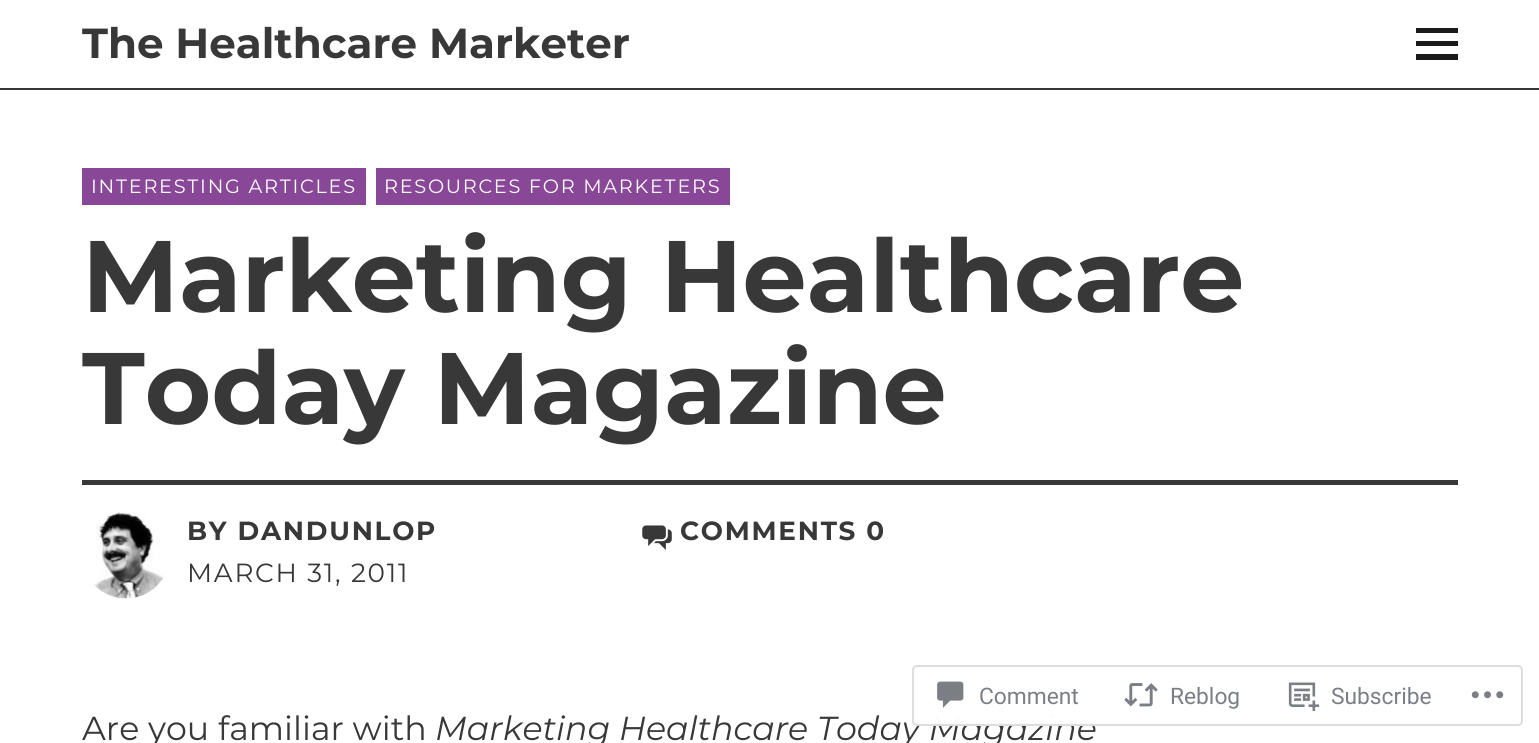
import math
import cairo

surface = cairo.ImageSurface(cairo.FORMAT_RGB24, 1539, 743)
ctx = cairo.Context(surface)
options = cairo.FontOptions()
options.set_hint_metrics(cairo.HINT_METRICS_OFF)
options.set_hint_style(cairo.HINT_STYLE_NONE)
ctx.set_font_options(options)
ctx.set_miter_limit(4)


def spaced_text(x, y, s, letter, word):
    ctx.move_to(x, y)
    for ch in s:
        ctx.show_text(ch)
        ctx.rel_move_to(letter + word * (ch == ' '), 0)


def round_rect(x, y, w, h, r):
    ctx.new_sub_path()
    for i, (u, v) in enumerate([(x + w - r, y + h - r), (x + r, y + h - r), (x + r, y + r), (x + w - r, y + r)]):
        ctx.arc(u, v, r, i * math.pi / 2, (i + 1) * math.pi / 2)
    ctx.close_path()


def picture(path, x, y, w, h):
    ctx.save()
    ctx.set_source_surface(cairo.ImageSurface.create_from_png(path), x, y)
    ctx.rectangle(x, y, w, h)
    ctx.fill()
    ctx.restore()


ctx.set_source_rgb(1, 1, 1)
ctx.paint()
ctx.set_source_rgb(0.22, 0.22, 0.22)
ctx.rectangle(0, 88, 1539, 2)
ctx.fill()
ctx.select_font_face("Montserrat", cairo.FONT_SLANT_NORMAL, cairo.FONT_WEIGHT_BOLD)
ctx.set_font_size(42)
ctx.move_to(82, 58)
ctx.show_text("The Healthcare Marketer")
ctx.set_source_rgb(0.102, 0.102, 0.102)
ctx.new_path()
ctx.move_to(1416, 60)
ctx.line_to(1416, 54)
ctx.line_to(1458, 54)
ctx.line_to(1458, 60)
ctx.close_path()
ctx.move_to(1416, 28)
ctx.line_to(1458, 28)
ctx.line_to(1458, 33)
ctx.line_to(1416, 33)
ctx.close_path()
ctx.move_to(1416, 46)
ctx.line_to(1416, 41)
ctx.line_to(1458, 41)
ctx.line_to(1458, 46)
ctx.close_path()
ctx.fill()
ctx.set_source_rgb(0.537, 0.278, 0.592)
ctx.rectangle(82, 168, 284, 37)
ctx.fill()
ctx.select_font_face("Montserrat")
ctx.set_font_size(19.25)
ctx.set_source_rgb(1, 1, 1)
spaced_text(91, 193, "INTERESTING ARTICLES", 1.75, 0)
ctx.set_source_rgb(0.537, 0.278, 0.592)
ctx.rectangle(376, 168, 354, 37)
ctx.fill()
ctx.set_source_rgb(1, 1, 1)
spaced_text(384, 193, "RESOURCES FOR MARKETERS", 1.75, 0)
ctx.select_font_face("Montserrat", cairo.FONT_SLANT_NORMAL, cairo.FONT_WEIGHT_BOLD)
ctx.set_font_size(101.5)
ctx.set_source_rgb(0.22, 0.22, 0.22)
ctx.move_to(82, 312)
ctx.show_text("Marketing Healthcare")
ctx.move_to(82, 424)
ctx.show_text("Today Magazine")
ctx.rectangle(82, 480, 1376, 5)
ctx.fill()
picture("img1.png", 94, 511, 70, 88)
ctx.set_font_size(26.25)
spaced_text(187, 540, "BY DANDUNLOP", 1.75, 0)
ctx.select_font_face("Montserrat")
spaced_text(187, 582, "MARCH 31, 2011", 1.75, 0)
picture("img2.png", 642, 525, 30, 25)
ctx.select_font_face("Montserrat", cairo.FONT_SLANT_NORMAL, cairo.FONT_WEIGHT_BOLD)
spaced_text(680, 540, "COMMENTS 0", 1.75, 0)
ctx.select_font_face("Montserrat")
ctx.set_font_size(33.25)
ctx.move_to(82, 740)
ctx.show_text("Are you familiar with")
ctx.select_font_face("Montserrat", cairo.FONT_SLANT_ITALIC)
ctx.move_to(435, 740)
ctx.show_text("Marketing Healthcare Today Magazine")
ctx.set_source_rgba(1, 1, 1, 0.98)
round_rect(912, 665, 611, 61, 5)
ctx.fill()
round_rect(913, 666, 609, 59, 4)
ctx.set_source_rgba(0.863, 0.863, 0.871, 0.98)
ctx.stroke()
picture("img3.png", 937, 681, 27, 27)
ctx.select_font_face("Roboto")
ctx.set_font_size(22.75)
ctx.set_source_rgb(0.482, 0.498, 0.522)
ctx.move_to(979, 704)
ctx.show_text("Comment")
picture("img4.png", 1124, 683, 34, 24)
ctx.move_to(1170, 704)
ctx.show_text("Reblog")
picture("img5.png", 1288, 682, 32, 29)
ctx.move_to(1331, 704)
ctx.show_text("Subscribe")
picture("img6.png", 1471, 691, 33, 8)
surface.write_to_png("page.png")
